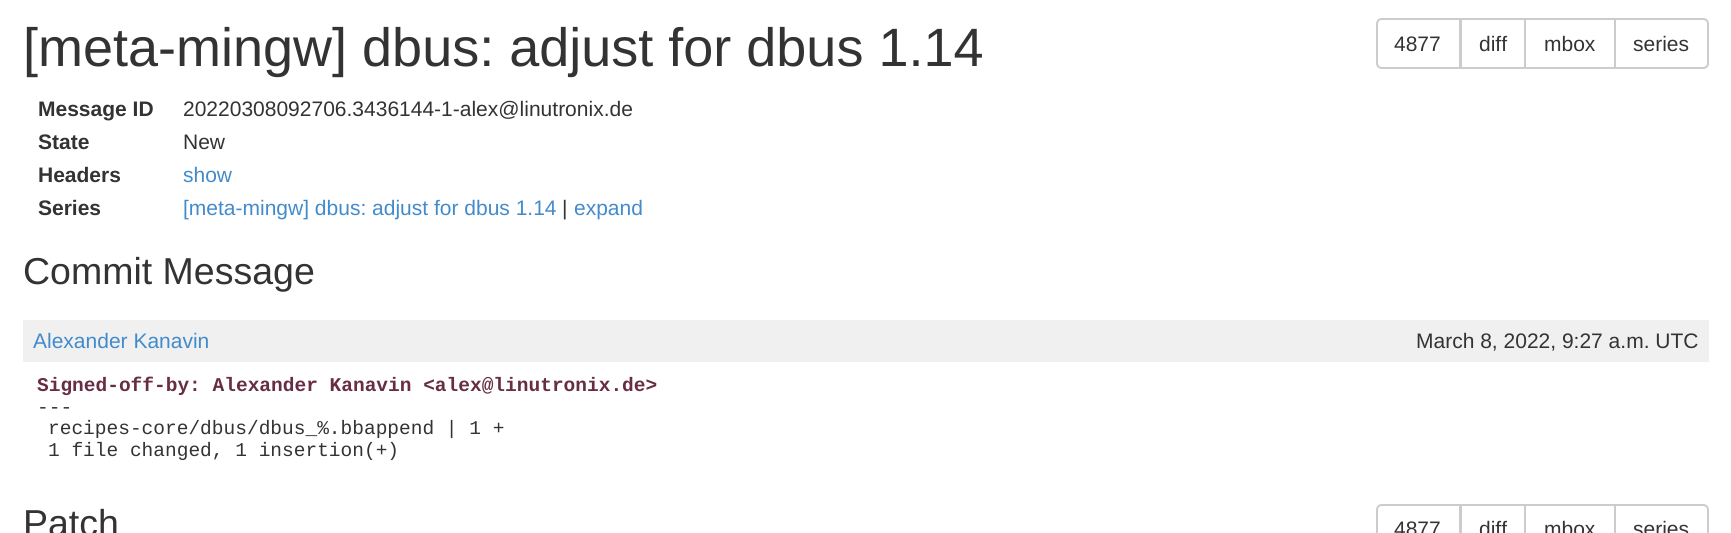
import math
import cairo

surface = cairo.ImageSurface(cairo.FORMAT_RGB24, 1731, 533)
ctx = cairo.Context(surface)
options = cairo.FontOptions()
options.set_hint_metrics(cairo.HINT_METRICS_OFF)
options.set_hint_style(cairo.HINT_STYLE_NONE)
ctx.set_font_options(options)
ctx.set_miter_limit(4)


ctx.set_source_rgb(1, 1, 1)
ctx.paint()
ctx.select_font_face("Liberation Sans")
ctx.set_font_size(54)
ctx.set_source_rgb(0.2, 0.2, 0.2)
ctx.move_to(23, 66)
ctx.show_text("[meta-mingw] dbus: adjust for dbus 1.14")
ctx.new_path()
ctx.move_to(1382, 19)
ctx.line_to(1460, 19)
ctx.line_to(1460, 68)
ctx.line_to(1382, 68)
ctx.curve_to(1379, 68, 1377, 66, 1377, 63)
ctx.line_to(1377, 24)
ctx.curve_to(1377, 21, 1379, 19, 1382, 19)
ctx.close_path()
ctx.set_source_rgb(0.8, 0.8, 0.8)
ctx.stroke()
ctx.set_font_size(21)
ctx.set_source_rgb(0.2, 0.2, 0.2)
ctx.move_to(1394, 51)
ctx.show_text("4877")
ctx.rectangle(1461, 19, 64, 49)
ctx.set_source_rgb(0.8, 0.8, 0.8)
ctx.stroke()
ctx.set_source_rgb(0.2, 0.2, 0.2)
ctx.move_to(1479, 51)
ctx.show_text("diff")
ctx.rectangle(1525, 19, 90, 49)
ctx.set_source_rgb(0.8, 0.8, 0.8)
ctx.stroke()
ctx.set_source_rgb(0.2, 0.2, 0.2)
ctx.move_to(1544, 51)
ctx.show_text("mbox")
ctx.set_source_rgb(1, 1, 1)
ctx.new_path()
ctx.move_to(1615, 19)
ctx.line_to(1703, 19)
ctx.curve_to(1706, 19, 1708, 21, 1708, 24)
ctx.line_to(1708, 63)
ctx.curve_to(1708, 66, 1706, 68, 1703, 68)
ctx.line_to(1615, 68)
ctx.close_path()
ctx.fill_preserve()
ctx.set_source_rgb(0.8, 0.8, 0.8)
ctx.stroke()
ctx.set_source_rgb(0.2, 0.2, 0.2)
ctx.move_to(1633, 51)
ctx.show_text("series")
ctx.select_font_face("Liberation Sans", cairo.FONT_SLANT_NORMAL, cairo.FONT_WEIGHT_BOLD)
ctx.move_to(38, 116)
ctx.show_text("Message ID")
ctx.select_font_face("Liberation Sans")
ctx.move_to(183, 116)
ctx.show_text("20220308092706.3436144-1-alex@linutronix.de")
ctx.select_font_face("Liberation Sans", cairo.FONT_SLANT_NORMAL, cairo.FONT_WEIGHT_BOLD)
ctx.move_to(38, 149)
ctx.show_text("State")
ctx.select_font_face("Liberation Sans")
ctx.move_to(183, 149)
ctx.show_text("New")
ctx.select_font_face("Liberation Sans", cairo.FONT_SLANT_NORMAL, cairo.FONT_WEIGHT_BOLD)
ctx.move_to(38, 182)
ctx.show_text("Headers")
ctx.select_font_face("Liberation Sans")
ctx.set_source_rgb(0.259, 0.545, 0.792)
ctx.move_to(183, 182)
ctx.show_text("show")
ctx.select_font_face("Liberation Sans", cairo.FONT_SLANT_NORMAL, cairo.FONT_WEIGHT_BOLD)
ctx.set_source_rgb(0.2, 0.2, 0.2)
ctx.move_to(38, 215)
ctx.show_text("Series")
ctx.select_font_face("Liberation Sans")
ctx.set_source_rgb(0.259, 0.545, 0.792)
ctx.move_to(183, 215)
ctx.show_text("[meta-mingw] dbus: adjust for dbus 1.14")
ctx.set_source_rgb(0.2, 0.2, 0.2)
ctx.move_to(562, 215)
ctx.show_text("|")
ctx.set_source_rgb(0.259, 0.545, 0.792)
ctx.move_to(574, 215)
ctx.show_text("expand")
ctx.set_font_size(37.5)
ctx.set_source_rgb(0.2, 0.2, 0.2)
ctx.move_to(23, 284)
ctx.show_text("Commit Message")
ctx.set_source_rgb(0.941, 0.941, 0.941)
ctx.rectangle(23, 320, 1686, 42)
ctx.fill()
ctx.set_font_size(21)
ctx.set_source_rgb(0.259, 0.545, 0.792)
ctx.move_to(33, 348)
ctx.show_text("Alexander Kanavin")
ctx.set_source_rgb(0.2, 0.2, 0.2)
ctx.move_to(1416, 348)
ctx.show_text("March 8, 2022, 9:27 a.m. UTC")
ctx.select_font_face("Liberation Mono", cairo.FONT_SLANT_NORMAL, cairo.FONT_WEIGHT_BOLD)
ctx.set_font_size(19.5)
ctx.set_source_rgb(0.404, 0.176, 0.271)
ctx.move_to(37, 391)
ctx.show_text("Signed-off-by: Alexander Kanavin <alex@linutronix.de>")
ctx.select_font_face("Liberation Mono")
ctx.set_source_rgb(0.2, 0.2, 0.2)
ctx.move_to(37, 413)
ctx.show_text("---")
ctx.move_to(48, 434)
ctx.show_text("recipes-core/dbus/dbus_%.bbappend | 1 +")
ctx.move_to(48, 456)
ctx.show_text("1 file changed, 1 insertion(+)")
ctx.select_font_face("Liberation Sans")
ctx.set_font_size(37.5)
ctx.move_to(23, 536)
ctx.show_text("Patch")
ctx.new_path()
ctx.move_to(1382, 505)
ctx.line_to(1460, 505)
ctx.line_to(1460, 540)
ctx.line_to(1382, 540)
ctx.curve_to(1379, 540, 1377, 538, 1377, 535)
ctx.line_to(1377, 510)
ctx.curve_to(1377, 507, 1379, 505, 1382, 505)
ctx.close_path()
ctx.set_source_rgb(0.8, 0.8, 0.8)
ctx.stroke()
ctx.set_font_size(21)
ctx.set_source_rgb(0.2, 0.2, 0.2)
ctx.move_to(1394, 536)
ctx.show_text("4877")
ctx.rectangle(1461, 505, 64, 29)
ctx.set_source_rgb(0.8, 0.8, 0.8)
ctx.stroke()
ctx.set_source_rgb(0.2, 0.2, 0.2)
ctx.move_to(1479, 536)
ctx.show_text("diff")
ctx.rectangle(1525, 505, 90, 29)
ctx.set_source_rgb(0.8, 0.8, 0.8)
ctx.stroke()
ctx.set_source_rgb(0.2, 0.2, 0.2)
ctx.move_to(1544, 536)
ctx.show_text("mbox")
ctx.set_source_rgb(1, 1, 1)
ctx.new_path()
ctx.move_to(1615, 505)
ctx.line_to(1703, 505)
ctx.curve_to(1706, 505, 1708, 507, 1708, 510)
ctx.line_to(1708, 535)
ctx.curve_to(1708, 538, 1706, 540, 1703, 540)
ctx.line_to(1615, 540)
ctx.close_path()
ctx.fill_preserve()
ctx.set_source_rgb(0.8, 0.8, 0.8)
ctx.stroke()
ctx.set_source_rgb(0.2, 0.2, 0.2)
ctx.move_to(1633, 536)
ctx.show_text("series")
surface.write_to_png("page.png")
